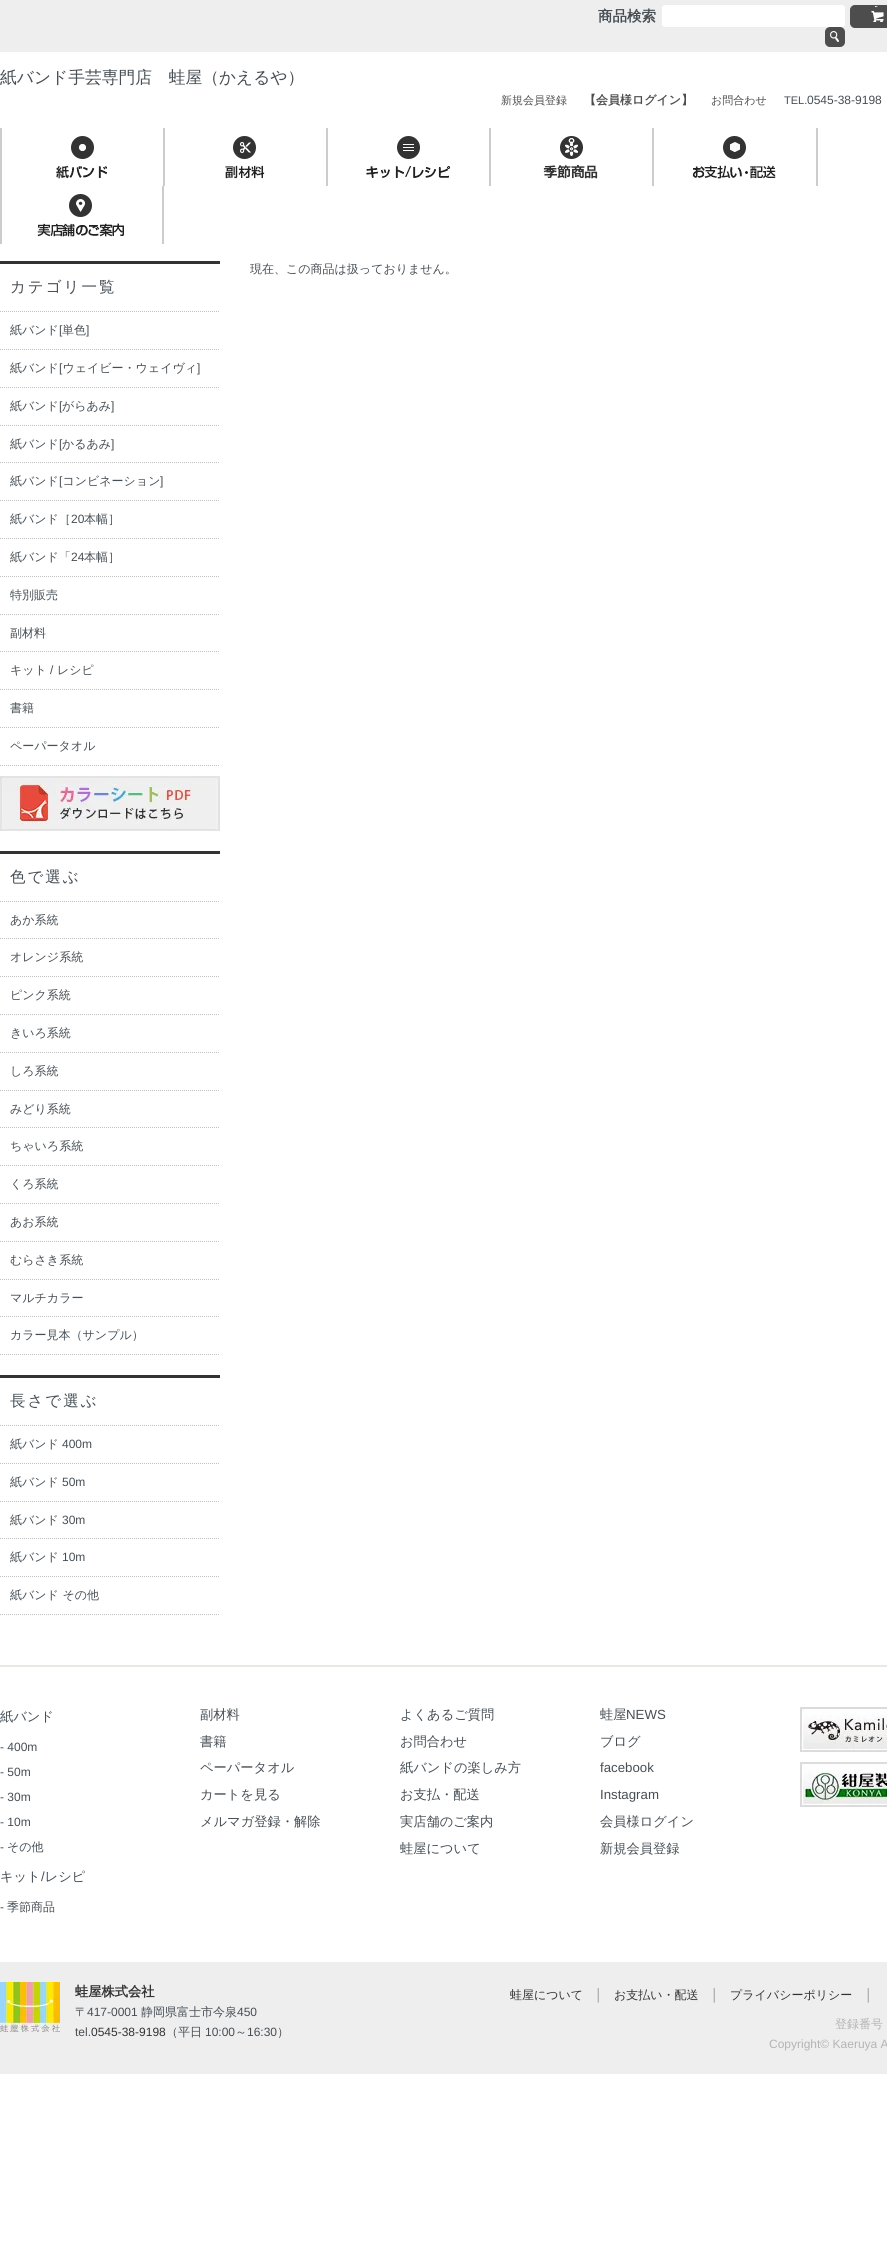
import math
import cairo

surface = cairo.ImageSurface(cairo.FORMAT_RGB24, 887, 2264)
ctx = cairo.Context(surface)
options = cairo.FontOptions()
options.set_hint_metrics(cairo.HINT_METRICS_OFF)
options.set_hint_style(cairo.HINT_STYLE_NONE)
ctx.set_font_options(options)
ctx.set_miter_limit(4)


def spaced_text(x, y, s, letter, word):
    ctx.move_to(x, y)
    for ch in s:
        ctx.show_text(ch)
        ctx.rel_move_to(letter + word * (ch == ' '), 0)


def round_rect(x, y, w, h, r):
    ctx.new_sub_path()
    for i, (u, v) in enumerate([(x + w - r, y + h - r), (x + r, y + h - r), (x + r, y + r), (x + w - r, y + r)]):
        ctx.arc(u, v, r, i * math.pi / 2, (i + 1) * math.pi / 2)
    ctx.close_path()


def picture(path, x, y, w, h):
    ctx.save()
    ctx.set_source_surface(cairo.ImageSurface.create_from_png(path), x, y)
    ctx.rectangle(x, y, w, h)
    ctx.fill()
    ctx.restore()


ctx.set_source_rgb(1, 1, 1)
ctx.paint()
ctx.set_source_rgb(0.933, 0.933, 0.933)
ctx.rectangle(0, 0, 887, 52)
ctx.fill()
ctx.select_font_face("WenQuanYi Zen Hei", cairo.FONT_SLANT_NORMAL, cairo.FONT_WEIGHT_BOLD)
ctx.set_font_size(14.5)
ctx.set_source_rgb(0.275, 0.306, 0.329)
ctx.move_to(598, 21)
ctx.show_text("商品検索")
ctx.set_source_rgb(1, 1, 1)
round_rect(662.5, 5.5, 182, 21, 2.5)
ctx.fill_preserve()
ctx.set_line_width(1)
ctx.stroke()
picture("img1.png", 825, 27, 20, 20)
ctx.set_source_rgb(0.302, 0.302, 0.302)
round_rect(850.5, 5.5, 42, 22, 4.5)
ctx.fill_preserve()
ctx.stroke()
picture("img2.png", 871, 6, 13, 16)
ctx.select_font_face("WenQuanYi Zen Hei Medium")
ctx.set_font_size(16.75)
ctx.set_source_rgb(0.275, 0.306, 0.329)
ctx.move_to(0, 83)
ctx.show_text("紙バンド手芸専門店　蛙屋（かえるや）")
ctx.set_font_size(11)
ctx.set_source_rgb(0.302, 0.302, 0.302)
ctx.move_to(501, 104)
ctx.show_text("新規会員登録")
ctx.select_font_face("WenQuanYi Zen Hei", cairo.FONT_SLANT_NORMAL, cairo.FONT_WEIGHT_BOLD)
ctx.set_font_size(12)
ctx.move_to(584, 104)
ctx.show_text("【会員様ログイン】")
ctx.select_font_face("WenQuanYi Zen Hei Medium")
ctx.set_font_size(11)
ctx.move_to(711, 104)
ctx.show_text("お問合わせ")
ctx.select_font_face("Liberation Sans")
ctx.set_source_rgb(0.275, 0.306, 0.329)
ctx.move_to(784, 104)
ctx.show_text("TEL.")
ctx.set_font_size(12)
ctx.move_to(807, 104)
ctx.show_text("0545-38-9198")
ctx.set_source_rgb(0.8, 0.8, 0.8)
ctx.rectangle(0, 128, 2, 116)
ctx.fill()
ctx.rectangle(163, 128, 2, 58)
ctx.fill()
picture("img3.png", 56, 136, 52, 43)
ctx.rectangle(326, 128, 2, 58)
ctx.fill()
picture("img4.png", 225, 136, 40, 43)
ctx.rectangle(489, 128, 2, 58)
ctx.fill()
picture("img5.png", 366, 136, 85, 42)
ctx.rectangle(652, 128, 2, 58)
ctx.fill()
picture("img6.png", 543, 136, 55, 43)
ctx.rectangle(816, 128, 2, 58)
ctx.fill()
picture("img7.png", 692, 136, 84, 43)
ctx.rectangle(162, 186, 2, 58)
ctx.fill()
picture("img8.png", 37, 194, 87, 43)
ctx.select_font_face("WenQuanYi Zen Hei Medium")
ctx.set_source_rgb(0.275, 0.306, 0.329)
ctx.move_to(250, 273)
ctx.show_text("現在、この商品は扱っておりません。")
ctx.set_source_rgb(0.2, 0.2, 0.2)
ctx.rectangle(0, 261, 220, 3)
ctx.fill()
ctx.new_path()
ctx.move_to(0, 311.5)
ctx.line_to(220, 311.5)
ctx.set_source_rgb(0.757, 0.757, 0.757)
ctx.set_dash([1, 1])
ctx.stroke()
ctx.set_font_size(15.5)
ctx.set_source_rgb(0.275, 0.306, 0.329)
spaced_text(10, 292, "カテゴリ一覧", 2, 0)
ctx.new_path()
ctx.move_to(0, 349.5)
ctx.line_to(220, 349.5)
ctx.set_source_rgb(0.757, 0.757, 0.757)
ctx.stroke()
ctx.set_font_size(12)
ctx.set_source_rgb(0.275, 0.306, 0.329)
ctx.move_to(10, 334)
ctx.show_text("紙バンド")
ctx.select_font_face("Liberation Sans")
ctx.move_to(59, 334)
ctx.show_text("[")
ctx.select_font_face("WenQuanYi Zen Hei Medium")
ctx.move_to(62, 334)
ctx.show_text("単色")
ctx.select_font_face("Liberation Sans")
ctx.move_to(86, 334)
ctx.show_text("]")
ctx.new_path()
ctx.move_to(0, 387.5)
ctx.line_to(220, 387.5)
ctx.set_source_rgb(0.757, 0.757, 0.757)
ctx.stroke()
ctx.select_font_face("WenQuanYi Zen Hei Medium")
ctx.set_source_rgb(0.275, 0.306, 0.329)
ctx.move_to(10, 372)
ctx.show_text("紙バンド ウェイビー・ウェイヴィ")
ctx.select_font_face("Liberation Sans")
ctx.move_to(59, 372)
ctx.show_text("[")
ctx.move_to(197, 372)
ctx.show_text("]")
ctx.new_path()
ctx.move_to(0, 425.5)
ctx.line_to(220, 425.5)
ctx.set_source_rgb(0.757, 0.757, 0.757)
ctx.stroke()
ctx.select_font_face("WenQuanYi Zen Hei Medium")
ctx.set_source_rgb(0.275, 0.306, 0.329)
ctx.move_to(10, 410)
ctx.show_text("紙バンド")
ctx.select_font_face("Liberation Sans")
ctx.move_to(59, 410)
ctx.show_text("[")
ctx.select_font_face("WenQuanYi Zen Hei Medium")
ctx.move_to(62, 410)
ctx.show_text("がらあみ")
ctx.select_font_face("Liberation Sans")
ctx.move_to(111, 410)
ctx.show_text("]")
ctx.new_path()
ctx.move_to(0, 462.5)
ctx.line_to(220, 462.5)
ctx.set_source_rgb(0.757, 0.757, 0.757)
ctx.stroke()
ctx.select_font_face("WenQuanYi Zen Hei Medium")
ctx.set_source_rgb(0.275, 0.306, 0.329)
ctx.move_to(10, 448)
ctx.show_text("紙バンド")
ctx.select_font_face("Liberation Sans")
ctx.move_to(59, 448)
ctx.show_text("[")
ctx.select_font_face("WenQuanYi Zen Hei Medium")
ctx.move_to(62, 448)
ctx.show_text("かるあみ")
ctx.select_font_face("Liberation Sans")
ctx.move_to(111, 448)
ctx.show_text("]")
ctx.new_path()
ctx.move_to(0, 500.5)
ctx.line_to(220, 500.5)
ctx.set_source_rgb(0.757, 0.757, 0.757)
ctx.stroke()
ctx.select_font_face("WenQuanYi Zen Hei Medium")
ctx.set_source_rgb(0.275, 0.306, 0.329)
ctx.move_to(10, 485)
ctx.show_text("紙バンド コンビネーション")
ctx.select_font_face("Liberation Sans")
ctx.move_to(59, 485)
ctx.show_text("[")
ctx.move_to(160, 485)
ctx.show_text("]")
ctx.new_path()
ctx.move_to(0, 538.5)
ctx.line_to(220, 538.5)
ctx.set_source_rgb(0.757, 0.757, 0.757)
ctx.stroke()
ctx.select_font_face("WenQuanYi Zen Hei Medium")
ctx.set_source_rgb(0.275, 0.306, 0.329)
ctx.move_to(10, 523)
ctx.show_text("紙バンド［")
ctx.select_font_face("Liberation Sans")
ctx.move_to(71, 523)
ctx.show_text("20")
ctx.select_font_face("WenQuanYi Zen Hei Medium")
ctx.move_to(84, 523)
ctx.show_text("本幅］")
ctx.new_path()
ctx.move_to(0, 576.5)
ctx.line_to(220, 576.5)
ctx.set_source_rgb(0.757, 0.757, 0.757)
ctx.stroke()
ctx.set_source_rgb(0.275, 0.306, 0.329)
ctx.move_to(10, 561)
ctx.show_text("紙バンド「")
ctx.select_font_face("Liberation Sans")
ctx.move_to(71, 561)
ctx.show_text("24")
ctx.select_font_face("WenQuanYi Zen Hei Medium")
ctx.move_to(84, 561)
ctx.show_text("本幅］")
ctx.new_path()
ctx.move_to(0, 614.5)
ctx.line_to(220, 614.5)
ctx.set_source_rgb(0.757, 0.757, 0.757)
ctx.stroke()
ctx.set_source_rgb(0.275, 0.306, 0.329)
ctx.move_to(10, 599)
ctx.show_text("特別販売")
ctx.new_path()
ctx.move_to(0, 651.5)
ctx.line_to(220, 651.5)
ctx.set_source_rgb(0.757, 0.757, 0.757)
ctx.stroke()
ctx.set_source_rgb(0.275, 0.306, 0.329)
ctx.move_to(10, 637)
ctx.show_text("副材料")
ctx.new_path()
ctx.move_to(0, 689.5)
ctx.line_to(220, 689.5)
ctx.set_source_rgb(0.757, 0.757, 0.757)
ctx.stroke()
ctx.set_source_rgb(0.275, 0.306, 0.329)
ctx.move_to(10, 674)
ctx.show_text("キット")
ctx.select_font_face("Liberation Sans")
ctx.move_to(50, 674)
ctx.show_text("/")
ctx.select_font_face("WenQuanYi Zen Hei Medium")
ctx.move_to(57, 674)
ctx.show_text("レシピ")
ctx.new_path()
ctx.move_to(0, 727.5)
ctx.line_to(220, 727.5)
ctx.set_source_rgb(0.757, 0.757, 0.757)
ctx.stroke()
ctx.set_source_rgb(0.275, 0.306, 0.329)
ctx.move_to(10, 712)
ctx.show_text("書籍")
ctx.new_path()
ctx.move_to(0, 765.5)
ctx.line_to(220, 765.5)
ctx.set_source_rgb(0.757, 0.757, 0.757)
ctx.stroke()
ctx.set_source_rgb(0.275, 0.306, 0.329)
ctx.move_to(10, 750)
ctx.show_text("ペーパータオル")
picture("img9.png", 0, 776, 220, 55)
ctx.set_source_rgb(0.2, 0.2, 0.2)
ctx.rectangle(0, 851, 220, 3)
ctx.fill()
ctx.new_path()
ctx.move_to(0, 901.5)
ctx.line_to(220, 901.5)
ctx.set_source_rgb(0.757, 0.757, 0.757)
ctx.stroke()
ctx.set_font_size(15.5)
ctx.set_source_rgb(0.275, 0.306, 0.329)
spaced_text(10, 882, "色で選ぶ", 2, 0)
ctx.new_path()
ctx.move_to(0, 938.5)
ctx.line_to(220, 938.5)
ctx.set_source_rgb(0.757, 0.757, 0.757)
ctx.stroke()
ctx.set_font_size(12)
ctx.set_source_rgb(0.275, 0.306, 0.329)
ctx.move_to(10, 924)
ctx.show_text("あか系統")
ctx.new_path()
ctx.move_to(0, 976.5)
ctx.line_to(220, 976.5)
ctx.set_source_rgb(0.757, 0.757, 0.757)
ctx.stroke()
ctx.set_source_rgb(0.275, 0.306, 0.329)
ctx.move_to(10, 961)
ctx.show_text("オレンジ系統")
ctx.new_path()
ctx.move_to(0, 1014.5)
ctx.line_to(220, 1014.5)
ctx.set_source_rgb(0.757, 0.757, 0.757)
ctx.stroke()
ctx.set_source_rgb(0.275, 0.306, 0.329)
ctx.move_to(10, 999)
ctx.show_text("ピンク系統")
ctx.new_path()
ctx.move_to(0, 1052.5)
ctx.line_to(220, 1052.5)
ctx.set_source_rgb(0.757, 0.757, 0.757)
ctx.stroke()
ctx.set_source_rgb(0.275, 0.306, 0.329)
ctx.move_to(10, 1037)
ctx.show_text("きいろ系統")
ctx.new_path()
ctx.move_to(0, 1090.5)
ctx.line_to(220, 1090.5)
ctx.set_source_rgb(0.757, 0.757, 0.757)
ctx.stroke()
ctx.set_source_rgb(0.275, 0.306, 0.329)
ctx.move_to(10, 1075)
ctx.show_text("しろ系統")
ctx.new_path()
ctx.move_to(0, 1127.5)
ctx.line_to(220, 1127.5)
ctx.set_source_rgb(0.757, 0.757, 0.757)
ctx.stroke()
ctx.set_source_rgb(0.275, 0.306, 0.329)
ctx.move_to(10, 1113)
ctx.show_text("みどり系統")
ctx.new_path()
ctx.move_to(0, 1165.5)
ctx.line_to(220, 1165.5)
ctx.set_source_rgb(0.757, 0.757, 0.757)
ctx.stroke()
ctx.set_source_rgb(0.275, 0.306, 0.329)
ctx.move_to(10, 1150)
ctx.show_text("ちゃいろ系統")
ctx.new_path()
ctx.move_to(0, 1203.5)
ctx.line_to(220, 1203.5)
ctx.set_source_rgb(0.757, 0.757, 0.757)
ctx.stroke()
ctx.set_source_rgb(0.275, 0.306, 0.329)
ctx.move_to(10, 1188)
ctx.show_text("くろ系統")
ctx.new_path()
ctx.move_to(0, 1241.5)
ctx.line_to(220, 1241.5)
ctx.set_source_rgb(0.757, 0.757, 0.757)
ctx.stroke()
ctx.set_source_rgb(0.275, 0.306, 0.329)
ctx.move_to(10, 1226)
ctx.show_text("あお系統")
ctx.new_path()
ctx.move_to(0, 1279.5)
ctx.line_to(220, 1279.5)
ctx.set_source_rgb(0.757, 0.757, 0.757)
ctx.stroke()
ctx.set_source_rgb(0.275, 0.306, 0.329)
ctx.move_to(10, 1264)
ctx.show_text("むらさき系統")
ctx.new_path()
ctx.move_to(0, 1316.5)
ctx.line_to(220, 1316.5)
ctx.set_source_rgb(0.757, 0.757, 0.757)
ctx.stroke()
ctx.set_source_rgb(0.275, 0.306, 0.329)
ctx.move_to(10, 1302)
ctx.show_text("マルチカラー")
ctx.new_path()
ctx.move_to(0, 1354.5)
ctx.line_to(220, 1354.5)
ctx.set_source_rgb(0.757, 0.757, 0.757)
ctx.stroke()
ctx.set_source_rgb(0.275, 0.306, 0.329)
ctx.move_to(10, 1339)
ctx.show_text("カラー見本（サンプル）")
ctx.set_source_rgb(0.2, 0.2, 0.2)
ctx.rectangle(0, 1375, 220, 3)
ctx.fill()
ctx.new_path()
ctx.move_to(0, 1425.5)
ctx.line_to(220, 1425.5)
ctx.set_source_rgb(0.757, 0.757, 0.757)
ctx.stroke()
ctx.set_font_size(15.5)
ctx.set_source_rgb(0.275, 0.306, 0.329)
spaced_text(10, 1406, "長さで選ぶ", 2, 0)
ctx.new_path()
ctx.move_to(0, 1463.5)
ctx.line_to(220, 1463.5)
ctx.set_source_rgb(0.757, 0.757, 0.757)
ctx.stroke()
ctx.set_font_size(12)
ctx.set_source_rgb(0.275, 0.306, 0.329)
ctx.move_to(10, 1448)
ctx.show_text("紙バンド")
ctx.select_font_face("Liberation Sans")
ctx.move_to(62, 1448)
ctx.show_text("400m")
ctx.new_path()
ctx.move_to(0, 1501.5)
ctx.line_to(220, 1501.5)
ctx.set_source_rgb(0.757, 0.757, 0.757)
ctx.stroke()
ctx.select_font_face("WenQuanYi Zen Hei Medium")
ctx.set_source_rgb(0.275, 0.306, 0.329)
ctx.move_to(10, 1486)
ctx.show_text("紙バンド")
ctx.select_font_face("Liberation Sans")
ctx.move_to(62, 1486)
ctx.show_text("50m")
ctx.new_path()
ctx.move_to(0, 1538.5)
ctx.line_to(220, 1538.5)
ctx.set_source_rgb(0.757, 0.757, 0.757)
ctx.stroke()
ctx.select_font_face("WenQuanYi Zen Hei Medium")
ctx.set_source_rgb(0.275, 0.306, 0.329)
ctx.move_to(10, 1524)
ctx.show_text("紙バンド")
ctx.select_font_face("Liberation Sans")
ctx.move_to(62, 1524)
ctx.show_text("30m")
ctx.new_path()
ctx.move_to(0, 1576.5)
ctx.line_to(220, 1576.5)
ctx.set_source_rgb(0.757, 0.757, 0.757)
ctx.stroke()
ctx.select_font_face("WenQuanYi Zen Hei Medium")
ctx.set_source_rgb(0.275, 0.306, 0.329)
ctx.move_to(10, 1561)
ctx.show_text("紙バンド")
ctx.select_font_face("Liberation Sans")
ctx.move_to(62, 1561)
ctx.show_text("10m")
ctx.new_path()
ctx.move_to(0, 1614.5)
ctx.line_to(220, 1614.5)
ctx.set_source_rgb(0.757, 0.757, 0.757)
ctx.stroke()
ctx.select_font_face("WenQuanYi Zen Hei Medium")
ctx.set_source_rgb(0.275, 0.306, 0.329)
ctx.move_to(10, 1599)
ctx.show_text("紙バンド その他")
ctx.set_source_rgb(0.91, 0.914, 0.882)
ctx.rectangle(0, 1665, 887, 2)
ctx.fill()
ctx.set_font_size(13.25)
ctx.set_source_rgb(0.275, 0.306, 0.329)
ctx.move_to(0, 1721)
ctx.show_text("紙バンド")
ctx.select_font_face("Liberation Sans")
ctx.set_font_size(12)
ctx.move_to(0, 1751)
ctx.show_text("- 400m")
ctx.move_to(0, 1776)
ctx.show_text("- 50m")
ctx.move_to(0, 1801)
ctx.show_text("- 30m")
ctx.move_to(0, 1826)
ctx.show_text("- 10m")
ctx.move_to(0, 1851)
ctx.show_text("-")
ctx.select_font_face("WenQuanYi Zen Hei Medium")
ctx.move_to(7, 1851)
ctx.show_text("その他")
ctx.set_font_size(13.25)
ctx.move_to(0, 1881)
ctx.show_text("キット レシピ")
ctx.select_font_face("Liberation Sans")
ctx.move_to(41, 1881)
ctx.show_text("/")
ctx.set_font_size(12)
ctx.move_to(0, 1911)
ctx.show_text("-")
ctx.select_font_face("WenQuanYi Zen Hei Medium")
ctx.move_to(7, 1911)
ctx.show_text("季節商品")
ctx.set_font_size(13.25)
ctx.move_to(200, 1719)
ctx.show_text("副材料")
ctx.move_to(200, 1746)
ctx.show_text("書籍")
ctx.move_to(200, 1772)
ctx.show_text("ペーパータオル")
ctx.move_to(200, 1799)
ctx.show_text("カートを見る")
ctx.move_to(200, 1826)
ctx.show_text("メルマガ登録・解除")
ctx.move_to(400, 1719)
ctx.show_text("よくあるご質問")
ctx.move_to(400, 1746)
ctx.show_text("お問合わせ")
ctx.move_to(400, 1772)
ctx.show_text("紙バンドの楽しみ方")
ctx.move_to(400, 1799)
ctx.show_text("お支払・配送")
ctx.move_to(400, 1826)
ctx.show_text("実店舗のご案内")
ctx.move_to(400, 1853)
ctx.show_text("蛙屋について")
ctx.move_to(600, 1719)
ctx.show_text("蛙屋")
ctx.select_font_face("Liberation Sans")
ctx.move_to(626, 1719)
ctx.show_text("NEWS")
ctx.select_font_face("WenQuanYi Zen Hei Medium")
ctx.move_to(600, 1746)
ctx.show_text("ブログ")
ctx.select_font_face("Liberation Sans")
ctx.move_to(600, 1772)
ctx.show_text("facebook")
ctx.move_to(600, 1799)
ctx.show_text("Instagram")
ctx.select_font_face("WenQuanYi Zen Hei Medium")
ctx.move_to(600, 1826)
ctx.show_text("会員様ログイン")
ctx.move_to(600, 1853)
ctx.show_text("新規会員登録")
picture("img10.png", 800, 1707, 87, 45)
picture("img11.png", 800, 1762, 87, 45)
ctx.set_source_rgb(0.933, 0.933, 0.933)
ctx.rectangle(0, 1962, 887, 112)
ctx.fill()
picture("img12.png", 0, 1982, 60, 50)
ctx.select_font_face("WenQuanYi Zen Hei", cairo.FONT_SLANT_NORMAL, cairo.FONT_WEIGHT_BOLD)
ctx.set_source_rgb(0.2, 0.2, 0.2)
ctx.move_to(75, 1996)
ctx.show_text("蛙屋株式会社")
ctx.select_font_face("WenQuanYi Zen Hei Medium")
ctx.set_font_size(12)
ctx.set_source_rgb(0.275, 0.306, 0.329)
ctx.move_to(75, 2016)
ctx.show_text("〒")
ctx.select_font_face("Liberation Sans")
ctx.move_to(87, 2016)
ctx.show_text("417-0001")
ctx.select_font_face("WenQuanYi Zen Hei Medium")
ctx.move_to(141, 2016)
ctx.show_text("静岡県富士市今泉")
ctx.select_font_face("Liberation Sans")
ctx.move_to(237, 2016)
ctx.show_text("450")
ctx.move_to(75, 2036)
ctx.show_text("tel.")
ctx.set_source_rgb(0.2, 0.2, 0.2)
ctx.move_to(91, 2036)
ctx.show_text("0545-38-9198")
ctx.select_font_face("WenQuanYi Zen Hei Medium")
ctx.set_source_rgb(0.275, 0.306, 0.329)
ctx.move_to(166, 2036)
ctx.show_text("（平日")
ctx.select_font_face("Liberation Sans")
ctx.move_to(205, 2036)
ctx.show_text("10:00")
ctx.select_font_face("WenQuanYi Zen Hei Medium")
ctx.move_to(235, 2036)
ctx.show_text("～")
ctx.select_font_face("Liberation Sans")
ctx.move_to(247, 2036)
ctx.show_text("16:30")
ctx.select_font_face("WenQuanYi Zen Hei Medium")
ctx.move_to(277, 2036)
ctx.show_text("）")
ctx.set_source_rgb(0.2, 0.2, 0.2)
ctx.move_to(510, 1999)
ctx.show_text("蛙屋について")
ctx.select_font_face("Liberation Sans")
ctx.set_source_rgb(0.561, 0.561, 0.561)
ctx.move_to(595, 1999)
ctx.show_text("│")
ctx.select_font_face("WenQuanYi Zen Hei Medium")
ctx.set_source_rgb(0.2, 0.2, 0.2)
ctx.move_to(614, 1999)
ctx.show_text("お支払い・配送")
ctx.select_font_face("Liberation Sans")
ctx.set_source_rgb(0.561, 0.561, 0.561)
ctx.move_to(711, 1999)
ctx.show_text("│")
ctx.select_font_face("WenQuanYi Zen Hei Medium")
ctx.set_source_rgb(0.2, 0.2, 0.2)
ctx.move_to(730, 1999)
ctx.show_text("プライバシーポリシー")
ctx.select_font_face("Liberation Sans")
ctx.set_source_rgb(0.561, 0.561, 0.561)
ctx.move_to(865, 1999)
ctx.show_text("│")
ctx.select_font_face("WenQuanYi Zen Hei Medium")
ctx.set_source_rgb(0.706, 0.706, 0.706)
ctx.move_to(835, 2028)
ctx.show_text("登録番号")
ctx.select_font_face("Liberation Sans")
ctx.move_to(769, 2048)
ctx.show_text("Copyright© Kaeruya A")
surface.write_to_png("page.png")
